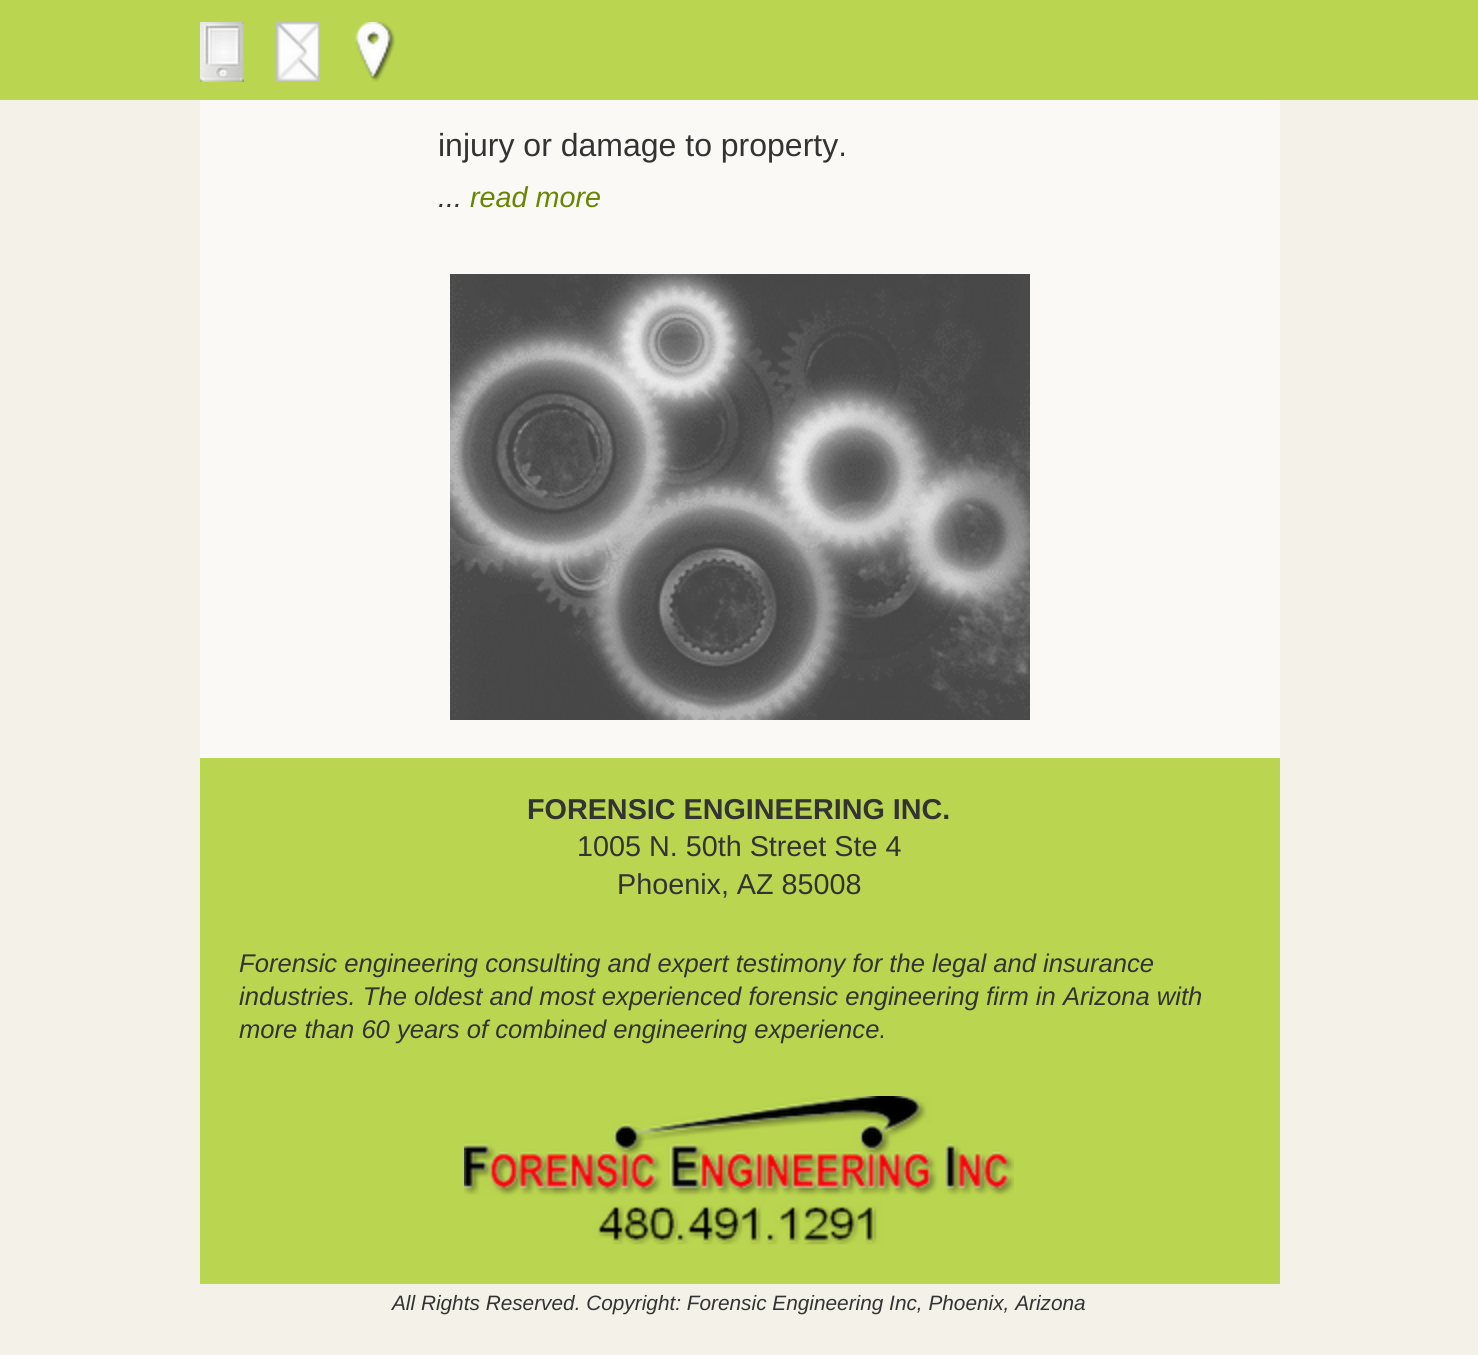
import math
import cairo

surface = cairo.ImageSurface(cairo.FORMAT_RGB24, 1478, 1355)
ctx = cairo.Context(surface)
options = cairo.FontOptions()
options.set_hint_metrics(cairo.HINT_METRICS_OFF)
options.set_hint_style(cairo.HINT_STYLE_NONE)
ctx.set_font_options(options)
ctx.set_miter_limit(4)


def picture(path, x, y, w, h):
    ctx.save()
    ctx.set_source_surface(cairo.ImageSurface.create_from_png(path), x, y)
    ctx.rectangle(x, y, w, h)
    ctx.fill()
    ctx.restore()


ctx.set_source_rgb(0.953, 0.945, 0.91)
ctx.paint()
ctx.set_source_rgb(0.729, 0.839, 0.314)
ctx.rectangle(0, 0, 1478, 100)
ctx.fill()
picture("img1.png", 200, 22, 44, 60)
picture("img2.png", 276, 22, 44, 60)
picture("img3.png", 352, 22, 44, 60)
ctx.set_source_rgb(0.98, 0.976, 0.961)
ctx.rectangle(200, 100, 1080, 658)
ctx.fill()
ctx.select_font_face("Liberation Sans")
ctx.set_font_size(32)
ctx.set_source_rgb(0.2, 0.2, 0.2)
ctx.move_to(438, 156)
ctx.show_text("injury or damage to property.")
ctx.select_font_face("Liberation Sans", cairo.FONT_SLANT_ITALIC)
ctx.set_font_size(28.75)
ctx.move_to(438, 207)
ctx.show_text("...")
ctx.set_source_rgb(0.416, 0.522, 0)
ctx.move_to(470, 207)
ctx.show_text("read more")
picture("img4.png", 450, 274, 580, 446)
ctx.set_source_rgb(0.729, 0.839, 0.314)
ctx.rectangle(200, 758, 1080, 526)
ctx.fill()
ctx.select_font_face("Liberation Sans", cairo.FONT_SLANT_NORMAL, cairo.FONT_WEIGHT_BOLD)
ctx.set_source_rgb(0.2, 0.2, 0.2)
ctx.move_to(527, 819)
ctx.show_text("FORENSIC ENGINEERING INC.")
ctx.select_font_face("Liberation Sans")
ctx.move_to(577, 856)
ctx.show_text("1005 N. 50th Street Ste 4")
ctx.move_to(617, 894)
ctx.show_text("Phoenix, AZ 85008")
ctx.select_font_face("Liberation Sans", cairo.FONT_SLANT_ITALIC)
ctx.set_font_size(25.6)
ctx.move_to(239, 972)
ctx.show_text("Forensic engineering consulting and expert testimony for the legal and insurance")
ctx.move_to(239, 1005)
ctx.show_text("industries. The oldest and most experienced forensic engineering firm in Arizona with")
ctx.move_to(239, 1038)
ctx.show_text("more than 60 years of combined engineering experience.")
picture("img5.png", 464, 1096, 550, 149)
ctx.set_font_size(20.8)
ctx.move_to(392, 1310)
ctx.show_text("All Rights Reserved. Copyright: Forensic Engineering Inc, Phoenix, Arizona")
surface.write_to_png("page.png")
